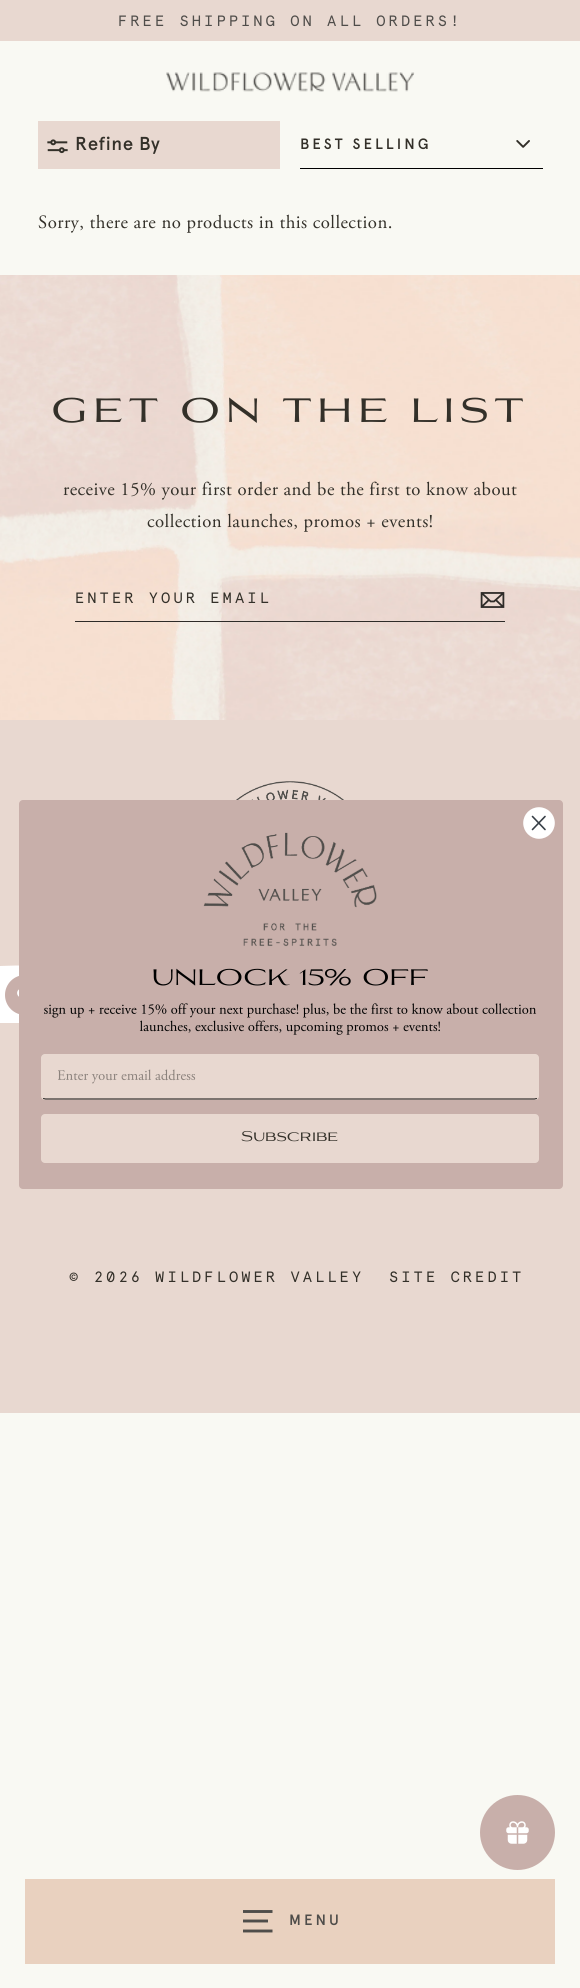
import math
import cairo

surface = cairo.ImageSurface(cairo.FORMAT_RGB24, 580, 1988)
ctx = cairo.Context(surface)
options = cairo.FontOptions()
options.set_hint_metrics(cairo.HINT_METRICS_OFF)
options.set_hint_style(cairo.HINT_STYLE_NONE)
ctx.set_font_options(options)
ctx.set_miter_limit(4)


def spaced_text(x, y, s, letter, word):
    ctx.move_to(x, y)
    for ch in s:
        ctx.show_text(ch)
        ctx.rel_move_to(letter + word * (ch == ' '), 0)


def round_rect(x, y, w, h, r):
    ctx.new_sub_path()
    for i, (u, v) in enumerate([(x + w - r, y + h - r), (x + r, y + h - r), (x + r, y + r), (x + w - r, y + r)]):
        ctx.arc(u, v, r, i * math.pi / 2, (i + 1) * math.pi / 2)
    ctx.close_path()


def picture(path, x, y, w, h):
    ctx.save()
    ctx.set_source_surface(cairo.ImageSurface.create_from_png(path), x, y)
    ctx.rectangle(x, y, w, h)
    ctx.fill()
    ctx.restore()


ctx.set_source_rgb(0.976, 0.973, 0.953)
ctx.paint()
ctx.set_source_rgb(0.91, 0.847, 0.816)
ctx.rectangle(0, 0, 580, 41)
ctx.fill()
ctx.select_font_face("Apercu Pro")
ctx.set_font_size(15)
ctx.set_source_rgb(0.31, 0.302, 0.29)
spaced_text(118, 26, "FREE SHIPPING ON ALL ORDERS!", 3, 0)
picture("img1.png", 166, 72, 249, 20)
ctx.set_source_rgb(0.914, 0.82, 0.749)
ctx.rectangle(25, 1879, 530, 85)
ctx.fill()
ctx.new_path()
ctx.move_to(243, 1911.5)
ctx.line_to(272.5, 1911.5)
ctx.move_to(243, 1921)
ctx.line_to(268, 1921)
ctx.move_to(243, 1931)
ctx.line_to(272.5, 1931)
ctx.set_source_rgb(0.31, 0.302, 0.29)
ctx.set_line_width(2.9)
ctx.stroke()
ctx.select_font_face("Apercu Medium")
spaced_text(289, 1925, "MENU", 3, 0)
ctx.set_source_rgb(0.91, 0.847, 0.816)
ctx.rectangle(38, 121, 242, 48)
ctx.fill()
picture("img2.png", 47, 139, 21, 15)
ctx.set_font_size(18.75)
ctx.set_source_rgb(0.2, 0.188, 0.161)
spaced_text(75, 150, "Refine By", 0.47, 0)
picture("img3.png", 516, 140, 14, 8)
ctx.set_source_rgb(0, 0, 0)
ctx.rectangle(300, 168, 243, 1)
ctx.fill()
ctx.set_font_size(15)
ctx.set_source_rgb(0.2, 0.188, 0.161)
spaced_text(300, 149, "BEST SELLING", 3, 0)
ctx.select_font_face("Adobe Garamond")
ctx.set_font_size(18.75)
spaced_text(38, 228, "Sorry, there are no products in this collection.", 0.47, 0)
picture("img4.png", 0, 275, 580, 445)
ctx.select_font_face("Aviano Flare")
ctx.set_font_size(37.5)
spaced_text(51, 422, "get on the list", 5.6, 0)
ctx.select_font_face("Adobe Garamond")
ctx.set_font_size(18.75)
spaced_text(63, 495, "receive 15% your first order and be the first to know about", 0.47, 0)
spaced_text(147, 527, "collection launches, promos + events!", 0.47, 0)
ctx.set_source_rgb(0.18, 0.169, 0.157)
ctx.rectangle(75, 621, 430, 1)
ctx.fill()
ctx.select_font_face("Apercu Pro")
ctx.set_font_size(15)
ctx.set_source_rgb(0.2, 0.188, 0.161)
spaced_text(75, 603, "ENTER YOUR EMAIL", 3, 0)
picture("img5.png", 480, 592, 25, 16)
ctx.set_source_rgb(0.91, 0.847, 0.816)
ctx.rectangle(0, 720, 580, 693)
ctx.fill()
picture("img6.png", 236, 781, 108, 19)
ctx.set_source_rgb(0.2, 0.188, 0.161)
spaced_text(69, 1282, "© 2026 WILDFLOWER VALLEY", 3, 0)
spaced_text(389, 1282, "SITE CREDIT", 3, 0)
ctx.set_source_rgb(1, 1, 1)
ctx.new_path()
ctx.move_to(0, 1023)
ctx.line_to(0, 966)
ctx.curve_to(10, 966, 24, 964, 33, 968)
ctx.curve_to(61, 980, 53, 1023, 22, 1023)
ctx.close_path()
ctx.fill()
ctx.set_source_rgb(0.784, 0.686, 0.667)
ctx.arc(25, 995, 20, 0, 2 * math.pi)
ctx.fill()
picture("img7.png", 17, 989, 2, 8)
ctx.arc(517.5, 1832.5, 37.5, 0, 2 * math.pi)
ctx.fill()
picture("img8.png", 506, 1821, 23, 23)
round_rect(19, 800, 544, 389, 4)
ctx.fill()
ctx.set_source_rgb(1, 1, 1)
ctx.arc(539, 823, 15, 0, 2 * math.pi)
ctx.fill_preserve()
ctx.set_line_width(1.6)
ctx.stroke()
ctx.new_path()
ctx.move_to(532.5, 816.5)
ctx.line_to(545, 829.5)
ctx.move_to(532.5, 829.5)
ctx.line_to(545, 816.5)
ctx.close_path()
ctx.set_source_rgb(0.216, 0.247, 0.278)
ctx.set_line_cap(cairo.LINE_CAP_ROUND)
ctx.set_line_join(cairo.LINE_JOIN_ROUND)
ctx.stroke()
picture("img9.png", 203, 832, 174, 115)
ctx.select_font_face("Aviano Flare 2")
ctx.set_font_size(21.75)
ctx.set_source_rgb(0, 0, 0)
ctx.move_to(152, 985)
ctx.show_text("UNLOCK 15% OFF")
picture("img10.png", 44, 1003, 493, 15)
picture("img11.png", 139, 1020, 301, 15)
ctx.set_source_rgb(0.91, 0.847, 0.816)
round_rect(41, 1054, 498, 46, 4)
ctx.fill()
ctx.new_path()
ctx.move_to(537, 1098.5)
ctx.line_to(534.5, 1099)
ctx.line_to(45.5, 1099)
ctx.line_to(43, 1098.5)
ctx.set_source_rgb(0, 0, 0)
ctx.set_line_width(0.9)
ctx.set_line_cap(cairo.LINE_CAP_BUTT)
ctx.set_line_join(cairo.LINE_JOIN_MITER)
ctx.stroke()
ctx.new_path()
ctx.move_to(43, 1098.5)
ctx.curve_to(41, 1096, 42, 1069, 42, 1064.5)
ctx.curve_to(42, 1062, 40.5, 1055, 45.5, 1055)
ctx.line_to(534.5, 1055)
ctx.curve_to(539.5, 1055, 538, 1062, 538, 1064.5)
ctx.curve_to(538, 1069, 539, 1096, 537, 1098.5)
ctx.set_source_rgb(0.91, 0.847, 0.816)
ctx.stroke()
picture("img12.png", 58, 1069, 138, 15)
round_rect(41, 1114, 498, 49, 4)
ctx.fill()
ctx.set_font_size(13.5)
ctx.set_source_rgb(0.2, 0.188, 0.161)
ctx.move_to(241, 1141)
ctx.show_text("Subscribe")
surface.write_to_png("page.png")
